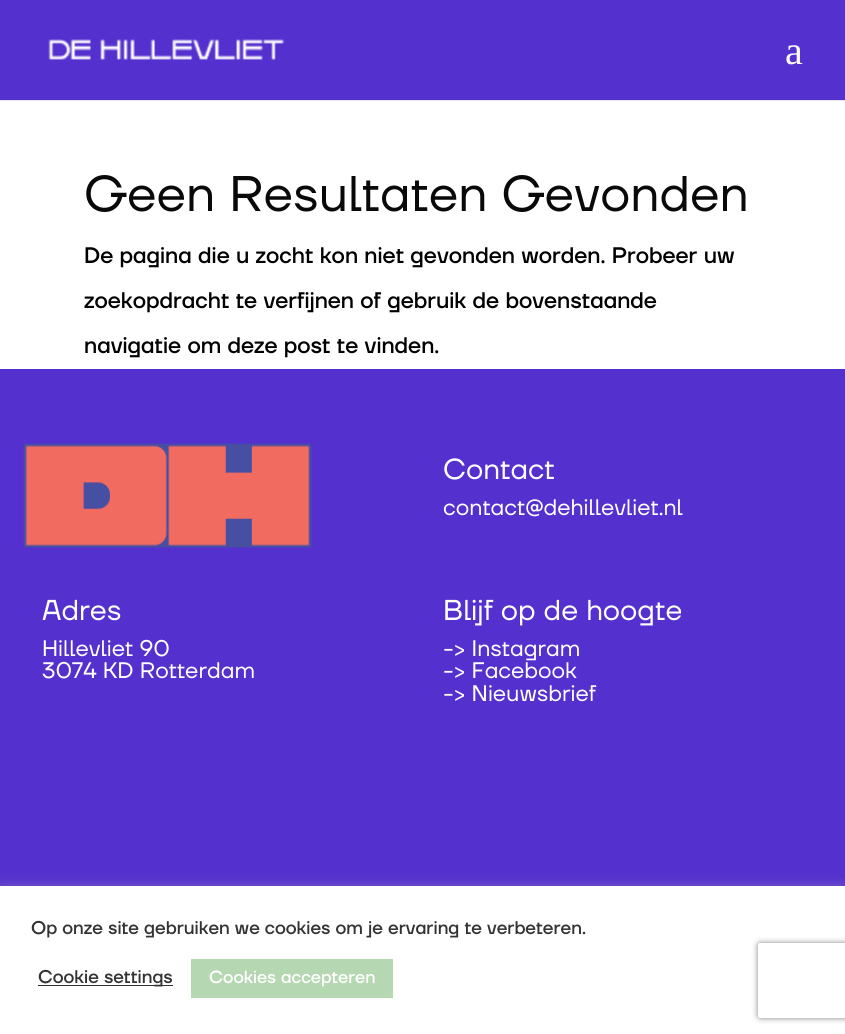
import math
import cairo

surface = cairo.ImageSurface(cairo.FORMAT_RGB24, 845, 1034)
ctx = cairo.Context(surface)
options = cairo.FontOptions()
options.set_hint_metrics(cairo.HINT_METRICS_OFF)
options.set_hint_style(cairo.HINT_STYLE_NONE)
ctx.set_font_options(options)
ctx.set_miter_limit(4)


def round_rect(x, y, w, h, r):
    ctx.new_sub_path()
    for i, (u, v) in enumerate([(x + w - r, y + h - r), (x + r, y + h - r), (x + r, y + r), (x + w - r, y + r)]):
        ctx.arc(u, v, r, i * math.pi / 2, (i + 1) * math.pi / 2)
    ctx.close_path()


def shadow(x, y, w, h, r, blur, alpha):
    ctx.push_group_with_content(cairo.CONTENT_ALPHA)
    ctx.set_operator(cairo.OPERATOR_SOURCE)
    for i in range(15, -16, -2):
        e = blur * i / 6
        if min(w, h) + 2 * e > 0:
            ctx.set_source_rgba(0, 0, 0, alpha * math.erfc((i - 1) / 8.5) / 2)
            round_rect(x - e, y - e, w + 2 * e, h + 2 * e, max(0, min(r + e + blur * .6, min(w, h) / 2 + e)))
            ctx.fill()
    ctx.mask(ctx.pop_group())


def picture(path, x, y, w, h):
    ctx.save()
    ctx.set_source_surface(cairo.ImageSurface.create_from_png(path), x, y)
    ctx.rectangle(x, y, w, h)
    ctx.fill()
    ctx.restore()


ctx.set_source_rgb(0.329, 0.188, 0.808)
ctx.paint()
ctx.set_source_rgb(0.902, 0.902, 0.902)
ctx.rectangle(0, 100, 845, 1)
ctx.fill()
picture("img1.png", 48, 39, 237, 21)
ctx.select_font_face("Liberation Serif")
ctx.set_font_size(40)
ctx.set_source_rgb(1, 1, 1)
ctx.move_to(785, 64)
ctx.show_text("a")
ctx.rectangle(0, 101, 845, 268)
ctx.fill()
ctx.select_font_face("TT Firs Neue")
ctx.set_font_size(50)
ctx.set_source_rgb(0.039, 0.039, 0.039)
ctx.move_to(84, 211)
ctx.show_text("Geen Resultaten Gevonden")
ctx.select_font_face("TT Firs Neue Medium")
ctx.set_font_size(22.5)
ctx.set_source_rgb(0, 0, 0)
ctx.move_to(84, 263)
ctx.show_text("De pagina die u zocht kon niet gevonden worden. Probeer uw")
ctx.move_to(84, 308)
ctx.show_text("zoekopdracht te verfijnen of gebruik de bovenstaande")
ctx.move_to(84, 353)
ctx.show_text("navigatie om deze post te vinden.")
picture("img2.png", 23, 443, 289, 105)
ctx.select_font_face("TT Firs Neue")
ctx.set_font_size(28.75)
ctx.set_source_rgb(1, 1, 1)
ctx.move_to(443, 479)
ctx.show_text("Contact")
ctx.set_font_size(22.5)
ctx.move_to(443, 515)
ctx.show_text("contact@dehillevliet.nl")
ctx.set_font_size(28.75)
ctx.move_to(42, 620)
ctx.show_text("Adres")
ctx.set_font_size(22.5)
ctx.move_to(42, 656)
ctx.show_text("Hillevliet 90")
ctx.move_to(42, 678)
ctx.show_text("3074 KD Rotterdam")
ctx.set_font_size(28.75)
ctx.move_to(443, 620)
ctx.show_text("Blijf op de hoogte")
ctx.set_font_size(22.5)
ctx.move_to(443, 656)
ctx.show_text("-> Instagram")
ctx.move_to(443, 678)
ctx.show_text("-> Facebook")
ctx.move_to(443, 701)
ctx.show_text("-> Nieuwsbrief")
ctx.set_source_rgb(0.675, 0.671, 0.671)
shadow(0, 885, 845, 149, 0, 6, 0.3)
ctx.set_source_rgb(1, 1, 1)
ctx.rectangle(0, 886, 845, 148)
ctx.fill()
ctx.select_font_face("TT Firs Neue Medium")
ctx.set_font_size(18.3)
ctx.set_source_rgb(0.2, 0.2, 0.2)
ctx.move_to(31, 934)
ctx.show_text("Op onze site gebruiken we cookies om je ervaring te verbeteren.")
ctx.rectangle(38, 985, 135, 1)
ctx.fill()
ctx.move_to(38, 983)
ctx.show_text("Cookie settings")
ctx.set_source_rgb(0.71, 0.843, 0.694)
ctx.rectangle(191, 959, 202, 39)
ctx.fill()
ctx.set_font_size(17.5)
ctx.set_source_rgb(1, 1, 1)
ctx.move_to(209, 983)
ctx.show_text("Cookies accepteren")
ctx.save()
ctx.set_fill_rule(cairo.FILL_RULE_EVEN_ODD)
ctx.new_path()
ctx.move_to(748, 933)
ctx.line_to(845, 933)
ctx.line_to(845, 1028)
ctx.line_to(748, 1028)
ctx.close_path()
ctx.move_to(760.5, 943)
ctx.line_to(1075.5, 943)
ctx.curve_to(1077, 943, 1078, 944, 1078, 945.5)
ctx.line_to(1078, 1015.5)
ctx.curve_to(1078, 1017, 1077, 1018, 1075.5, 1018)
ctx.line_to(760.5, 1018)
ctx.curve_to(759, 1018, 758, 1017, 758, 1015.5)
ctx.line_to(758, 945.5)
ctx.curve_to(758, 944, 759, 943, 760.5, 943)
ctx.close_path()
ctx.clip()
ctx.set_source_rgb(0.502, 0.502, 0.502)
shadow(758, 943, 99, 75, 2.5, 3, 1)
ctx.restore()
surface.write_to_png("page.png")
